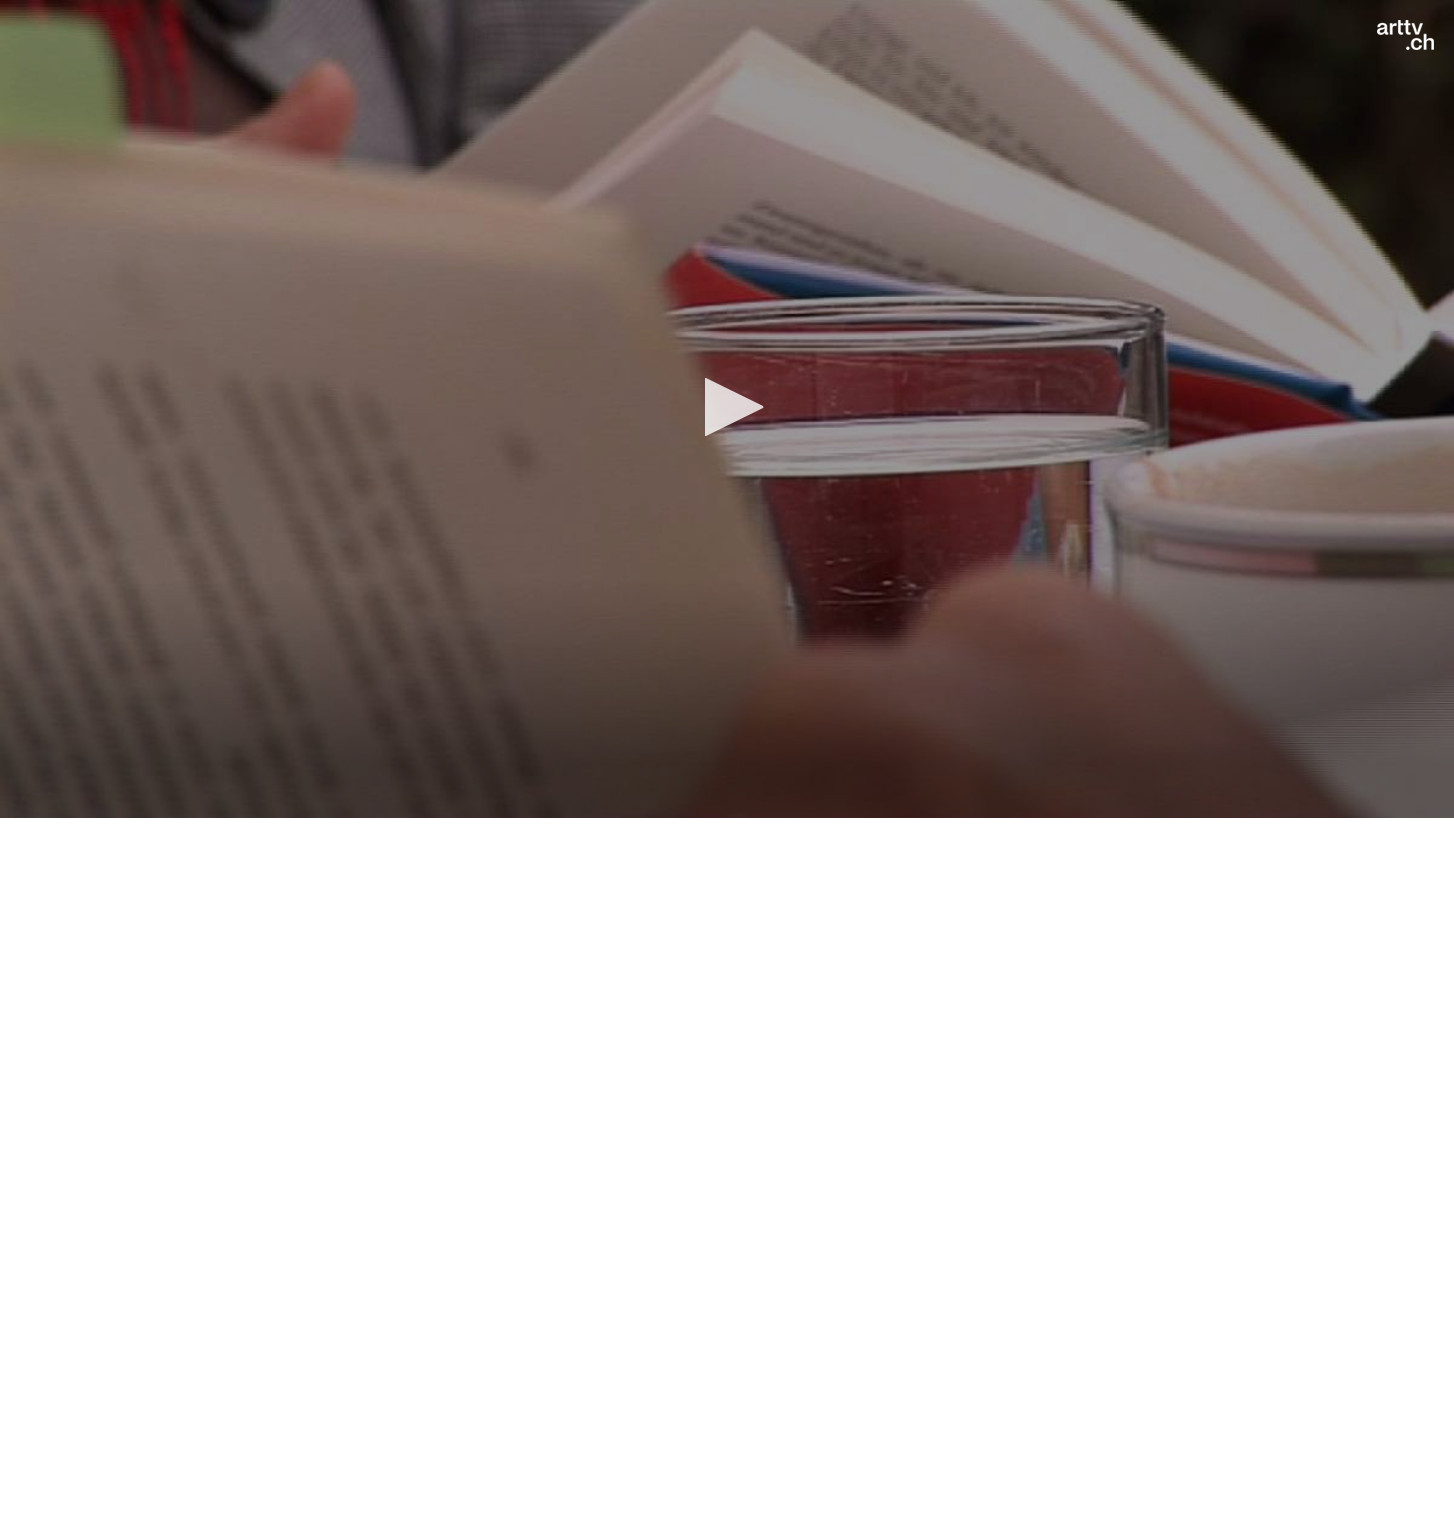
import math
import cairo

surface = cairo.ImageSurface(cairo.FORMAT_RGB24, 1454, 1526)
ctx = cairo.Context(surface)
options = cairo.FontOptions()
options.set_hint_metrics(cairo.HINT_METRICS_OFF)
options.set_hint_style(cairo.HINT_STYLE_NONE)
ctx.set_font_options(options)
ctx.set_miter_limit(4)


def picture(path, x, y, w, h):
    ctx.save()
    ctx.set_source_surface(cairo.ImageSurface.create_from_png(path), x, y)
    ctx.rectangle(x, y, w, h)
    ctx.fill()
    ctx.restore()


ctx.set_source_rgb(1, 1, 1)
ctx.paint()
picture("img1.png", 0, 0, 1454, 818)
picture("img2.png", 1377, 20, 57, 30)
ctx.set_source_rgba(1, 1, 1, 0.8)
ctx.new_path()
ctx.move_to(706, 436)
ctx.line_to(705, 436)
ctx.line_to(705, 378)
ctx.line_to(706, 378)
ctx.line_to(763, 406)
ctx.curve_to(763, 407, 764, 407, 763, 408)
ctx.close_path()
ctx.fill()
surface.write_to_png("page.png")
